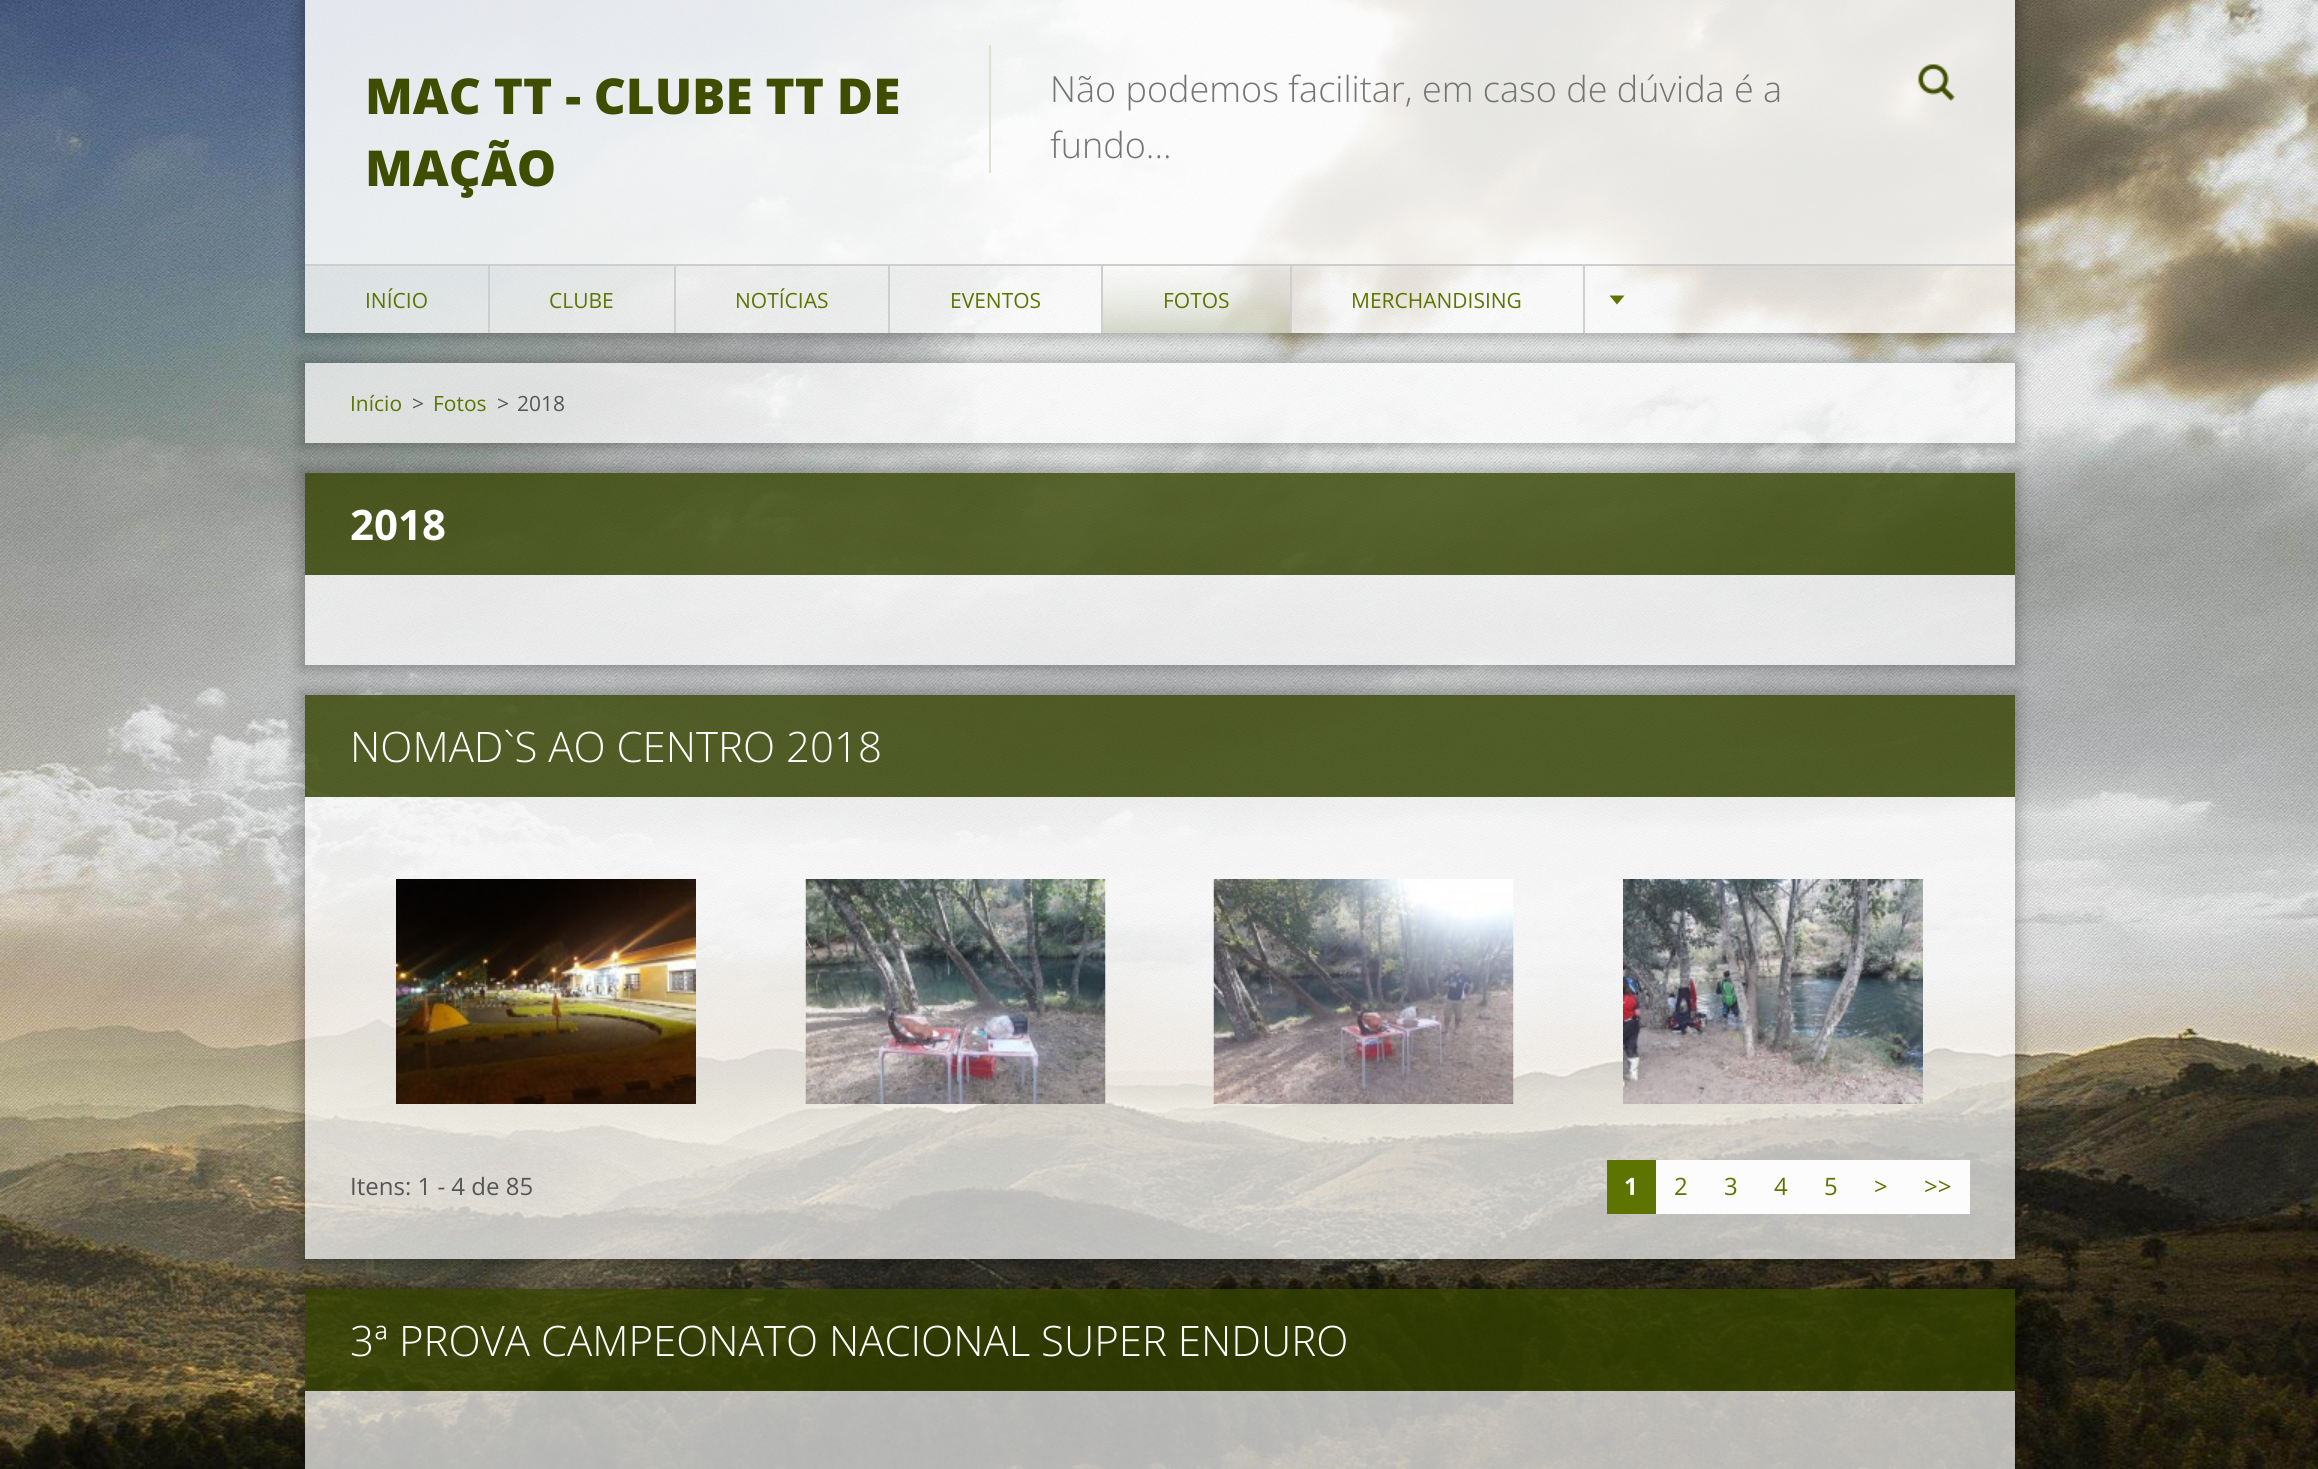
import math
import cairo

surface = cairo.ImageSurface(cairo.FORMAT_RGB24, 2318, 1469)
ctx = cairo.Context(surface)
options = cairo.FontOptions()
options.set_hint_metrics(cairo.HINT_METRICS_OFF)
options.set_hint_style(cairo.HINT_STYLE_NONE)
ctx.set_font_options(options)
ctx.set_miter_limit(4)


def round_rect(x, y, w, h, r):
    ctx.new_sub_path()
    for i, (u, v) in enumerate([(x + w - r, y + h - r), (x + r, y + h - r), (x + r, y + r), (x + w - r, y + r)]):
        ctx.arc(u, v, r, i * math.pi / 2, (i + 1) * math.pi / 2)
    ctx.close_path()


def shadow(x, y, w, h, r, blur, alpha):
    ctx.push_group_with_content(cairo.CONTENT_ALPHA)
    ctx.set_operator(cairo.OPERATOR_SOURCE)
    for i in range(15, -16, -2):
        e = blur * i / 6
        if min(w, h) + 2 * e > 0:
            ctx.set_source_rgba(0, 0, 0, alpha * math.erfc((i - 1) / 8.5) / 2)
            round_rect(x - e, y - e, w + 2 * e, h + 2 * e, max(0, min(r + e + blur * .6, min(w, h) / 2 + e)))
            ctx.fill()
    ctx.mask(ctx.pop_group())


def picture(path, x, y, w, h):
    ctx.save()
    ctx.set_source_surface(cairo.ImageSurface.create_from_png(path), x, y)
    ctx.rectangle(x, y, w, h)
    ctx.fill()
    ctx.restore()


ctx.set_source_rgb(1, 1, 1)
ctx.paint()
picture("img1.png", 0, 0, 2318, 1469)
ctx.save()
ctx.set_fill_rule(cairo.FILL_RULE_EVEN_ODD)
ctx.new_path()
ctx.move_to(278, 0)
ctx.line_to(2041, 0)
ctx.line_to(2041, 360)
ctx.line_to(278, 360)
ctx.close_path()
ctx.move_to(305, 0)
ctx.line_to(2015, 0)
ctx.line_to(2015, 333)
ctx.line_to(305, 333)
ctx.close_path()
ctx.clip()
ctx.set_source_rgb(0, 0, 0)
shadow(300, -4, 1719, 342, 0, 7, 0.25)
ctx.restore()
ctx.set_source_rgba(1, 1, 1, 0.85)
ctx.rectangle(305, 0, 1710, 264)
ctx.fill()
ctx.select_font_face("Open Sans ExtraBold")
ctx.set_font_size(49.5)
ctx.set_source_rgb(0.243, 0.302, 0)
ctx.move_to(365, 114)
ctx.show_text("MAC TT - CLUBE TT DE")
ctx.move_to(365, 186)
ctx.show_text("MAÇÃO")
ctx.set_source_rgb(0.863, 0.886, 0.812)
ctx.rectangle(989, 45, 2, 128)
ctx.fill()
ctx.select_font_face("Open Sans Light")
ctx.set_font_size(36)
ctx.set_source_rgb(0.455, 0.455, 0.455)
ctx.move_to(1050, 102)
ctx.show_text("Não podemos facilitar, em caso de dúvida é a")
ctx.move_to(1050, 158)
ctx.show_text("fundo...")
picture("img2.png", 1918, 64, 37, 37)
ctx.set_source_rgb(0.808, 0.808, 0.808)
ctx.rectangle(305, 264, 1710, 2)
ctx.fill()
ctx.set_source_rgba(1, 1, 1, 0.75)
ctx.rectangle(305, 266, 1710, 67)
ctx.fill()
ctx.set_source_rgb(0.808, 0.808, 0.808)
ctx.rectangle(488, 266, 2, 67)
ctx.fill()
ctx.select_font_face("Open Sans")
ctx.set_font_size(21)
ctx.set_source_rgb(0.365, 0.455, 0)
ctx.move_to(365, 308)
ctx.show_text("INÍCIO")
ctx.set_source_rgb(0.808, 0.808, 0.808)
ctx.rectangle(674, 266, 2, 67)
ctx.fill()
ctx.set_source_rgb(0.365, 0.455, 0)
ctx.move_to(549, 308)
ctx.show_text("CLUBE")
ctx.set_source_rgb(0.808, 0.808, 0.808)
ctx.rectangle(888, 266, 2, 67)
ctx.fill()
ctx.set_source_rgb(0.365, 0.455, 0)
ctx.move_to(735, 308)
ctx.show_text("NOTÍCIAS")
ctx.set_source_rgb(0.808, 0.808, 0.808)
ctx.rectangle(1101, 266, 2, 67)
ctx.fill()
ctx.set_source_rgb(0.365, 0.455, 0)
ctx.move_to(950, 308)
ctx.show_text("EVENTOS")
gradient = cairo.LinearGradient(1196, 266, 1196, 333)
gradient.add_color_stop_rgba(0, 1, 1, 1, 0.1)
gradient.add_color_stop_rgba(1, 0.243, 0.302, 0, 0.2)
ctx.set_source(gradient)
ctx.rectangle(1103, 266, 187, 67)
ctx.fill()
ctx.set_source_rgb(0.808, 0.808, 0.808)
ctx.rectangle(1290, 266, 2, 67)
ctx.fill()
ctx.set_source_rgb(0.365, 0.455, 0)
ctx.move_to(1163, 308)
ctx.show_text("FOTOS")
ctx.set_source_rgb(0.808, 0.808, 0.808)
ctx.rectangle(1583, 266, 2, 67)
ctx.fill()
ctx.set_source_rgb(0.365, 0.455, 0)
ctx.move_to(1351, 308)
ctx.show_text("MERCHANDISING")
ctx.new_path()
ctx.move_to(1609.5, 295.5)
ctx.line_to(1624.5, 295.5)
ctx.line_to(1617, 304.5)
ctx.close_path()
ctx.fill()
ctx.save()
ctx.set_fill_rule(cairo.FILL_RULE_EVEN_ODD)
ctx.new_path()
ctx.move_to(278, 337)
ctx.line_to(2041, 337)
ctx.line_to(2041, 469)
ctx.line_to(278, 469)
ctx.close_path()
ctx.move_to(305, 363)
ctx.line_to(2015, 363)
ctx.line_to(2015, 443)
ctx.line_to(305, 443)
ctx.close_path()
ctx.clip()
ctx.set_source_rgb(0, 0, 0)
shadow(300, 359, 1719, 88, 0, 7, 0.25)
ctx.restore()
ctx.set_source_rgba(1, 1, 1, 0.7)
ctx.rectangle(305, 363, 1710, 80)
ctx.fill()
ctx.set_source_rgb(0.365, 0.455, 0)
ctx.move_to(350, 411)
ctx.show_text("Início")
ctx.set_source_rgb(0.333, 0.333, 0.333)
ctx.move_to(412, 411)
ctx.show_text(">")
ctx.set_source_rgb(0.365, 0.455, 0)
ctx.move_to(433, 411)
ctx.show_text("Fotos")
ctx.set_source_rgb(0.333, 0.333, 0.333)
ctx.move_to(497, 411)
ctx.show_text(">")
ctx.move_to(517, 411)
ctx.show_text("2018")
ctx.save()
ctx.set_fill_rule(cairo.FILL_RULE_EVEN_ODD)
ctx.new_path()
ctx.move_to(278, 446)
ctx.line_to(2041, 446)
ctx.line_to(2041, 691)
ctx.line_to(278, 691)
ctx.close_path()
ctx.move_to(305, 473)
ctx.line_to(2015, 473)
ctx.line_to(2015, 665)
ctx.line_to(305, 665)
ctx.close_path()
ctx.clip()
ctx.set_source_rgb(0, 0, 0)
shadow(300, 468, 1719, 201, 0, 7, 0.25)
ctx.restore()
ctx.set_source_rgba(0.208, 0.259, 0, 0.8)
ctx.rectangle(305, 473, 1710, 102)
ctx.fill()
ctx.select_font_face("Open Sans", cairo.FONT_SLANT_NORMAL, cairo.FONT_WEIGHT_BOLD)
ctx.set_font_size(42)
ctx.set_source_rgb(1, 1, 1)
ctx.move_to(350, 540)
ctx.show_text("2018")
ctx.set_source_rgba(1, 1, 1, 0.7)
ctx.rectangle(305, 575, 1710, 45)
ctx.fill()
ctx.rectangle(305, 620, 1710, 45)
ctx.fill()
ctx.save()
ctx.set_fill_rule(cairo.FILL_RULE_EVEN_ODD)
ctx.new_path()
ctx.move_to(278, 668)
ctx.line_to(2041, 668)
ctx.line_to(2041, 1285)
ctx.line_to(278, 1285)
ctx.close_path()
ctx.move_to(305, 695)
ctx.line_to(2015, 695)
ctx.line_to(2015, 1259)
ctx.line_to(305, 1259)
ctx.close_path()
ctx.clip()
ctx.set_source_rgb(0, 0, 0)
shadow(300, 690, 1719, 573, 0, 7, 0.25)
ctx.restore()
ctx.set_source_rgba(0.208, 0.259, 0, 0.8)
ctx.rectangle(305, 695, 1710, 102)
ctx.fill()
ctx.select_font_face("Open Sans Light")
ctx.set_source_rgb(1, 1, 1)
ctx.move_to(350, 762)
ctx.show_text("NOMAD`S AO CENTRO 2018")
ctx.set_source_rgba(1, 1, 1, 0.7)
ctx.rectangle(305, 797, 1710, 363)
ctx.fill()
picture("img3.png", 396, 879, 300, 225)
picture("img4.png", 805, 879, 301, 225)
picture("img5.png", 1213, 879, 301, 225)
picture("img6.png", 1623, 879, 300, 225)
ctx.rectangle(305, 1160, 1710, 99)
ctx.fill()
ctx.select_font_face("Open Sans")
ctx.set_font_size(24)
ctx.set_source_rgb(0.333, 0.333, 0.333)
ctx.move_to(350, 1195)
ctx.show_text("Itens: 1 - 4 de 85")
ctx.set_source_rgb(0.988, 0.988, 0.988)
ctx.rectangle(1656, 1160, 314, 54)
ctx.fill()
ctx.set_source_rgb(0.365, 0.455, 0)
ctx.rectangle(1607, 1160, 49, 54)
ctx.fill()
ctx.select_font_face("Open Sans", cairo.FONT_SLANT_NORMAL, cairo.FONT_WEIGHT_BOLD)
ctx.set_source_rgb(1, 1, 1)
ctx.move_to(1624, 1195)
ctx.show_text("1")
ctx.select_font_face("Open Sans")
ctx.set_source_rgb(0.365, 0.455, 0)
ctx.move_to(1674, 1195)
ctx.show_text("2")
ctx.move_to(1724, 1195)
ctx.show_text("3")
ctx.move_to(1774, 1195)
ctx.show_text("4")
ctx.move_to(1824, 1195)
ctx.show_text("5")
ctx.move_to(1874, 1195)
ctx.show_text(">")
ctx.move_to(1924, 1195)
ctx.show_text(">>")
ctx.save()
ctx.set_fill_rule(cairo.FILL_RULE_EVEN_ODD)
ctx.new_path()
ctx.move_to(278, 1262)
ctx.line_to(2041, 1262)
ctx.line_to(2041, 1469)
ctx.line_to(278, 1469)
ctx.close_path()
ctx.move_to(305, 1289)
ctx.line_to(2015, 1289)
ctx.line_to(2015, 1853)
ctx.line_to(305, 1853)
ctx.close_path()
ctx.clip()
ctx.set_source_rgb(0, 0, 0)
shadow(300, 1284, 1719, 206, 0, 7, 0.25)
ctx.restore()
ctx.set_source_rgba(0.208, 0.259, 0, 0.8)
ctx.rectangle(305, 1289, 1710, 102)
ctx.fill()
ctx.select_font_face("Open Sans Light")
ctx.set_font_size(42)
ctx.set_source_rgb(1, 1, 1)
ctx.move_to(350, 1356)
ctx.show_text("3ª PROVA CAMPEONATO NACIONAL SUPER ENDURO")
ctx.set_source_rgba(1, 1, 1, 0.7)
ctx.rectangle(305, 1391, 1710, 78)
ctx.fill()
surface.write_to_png("page.png")
